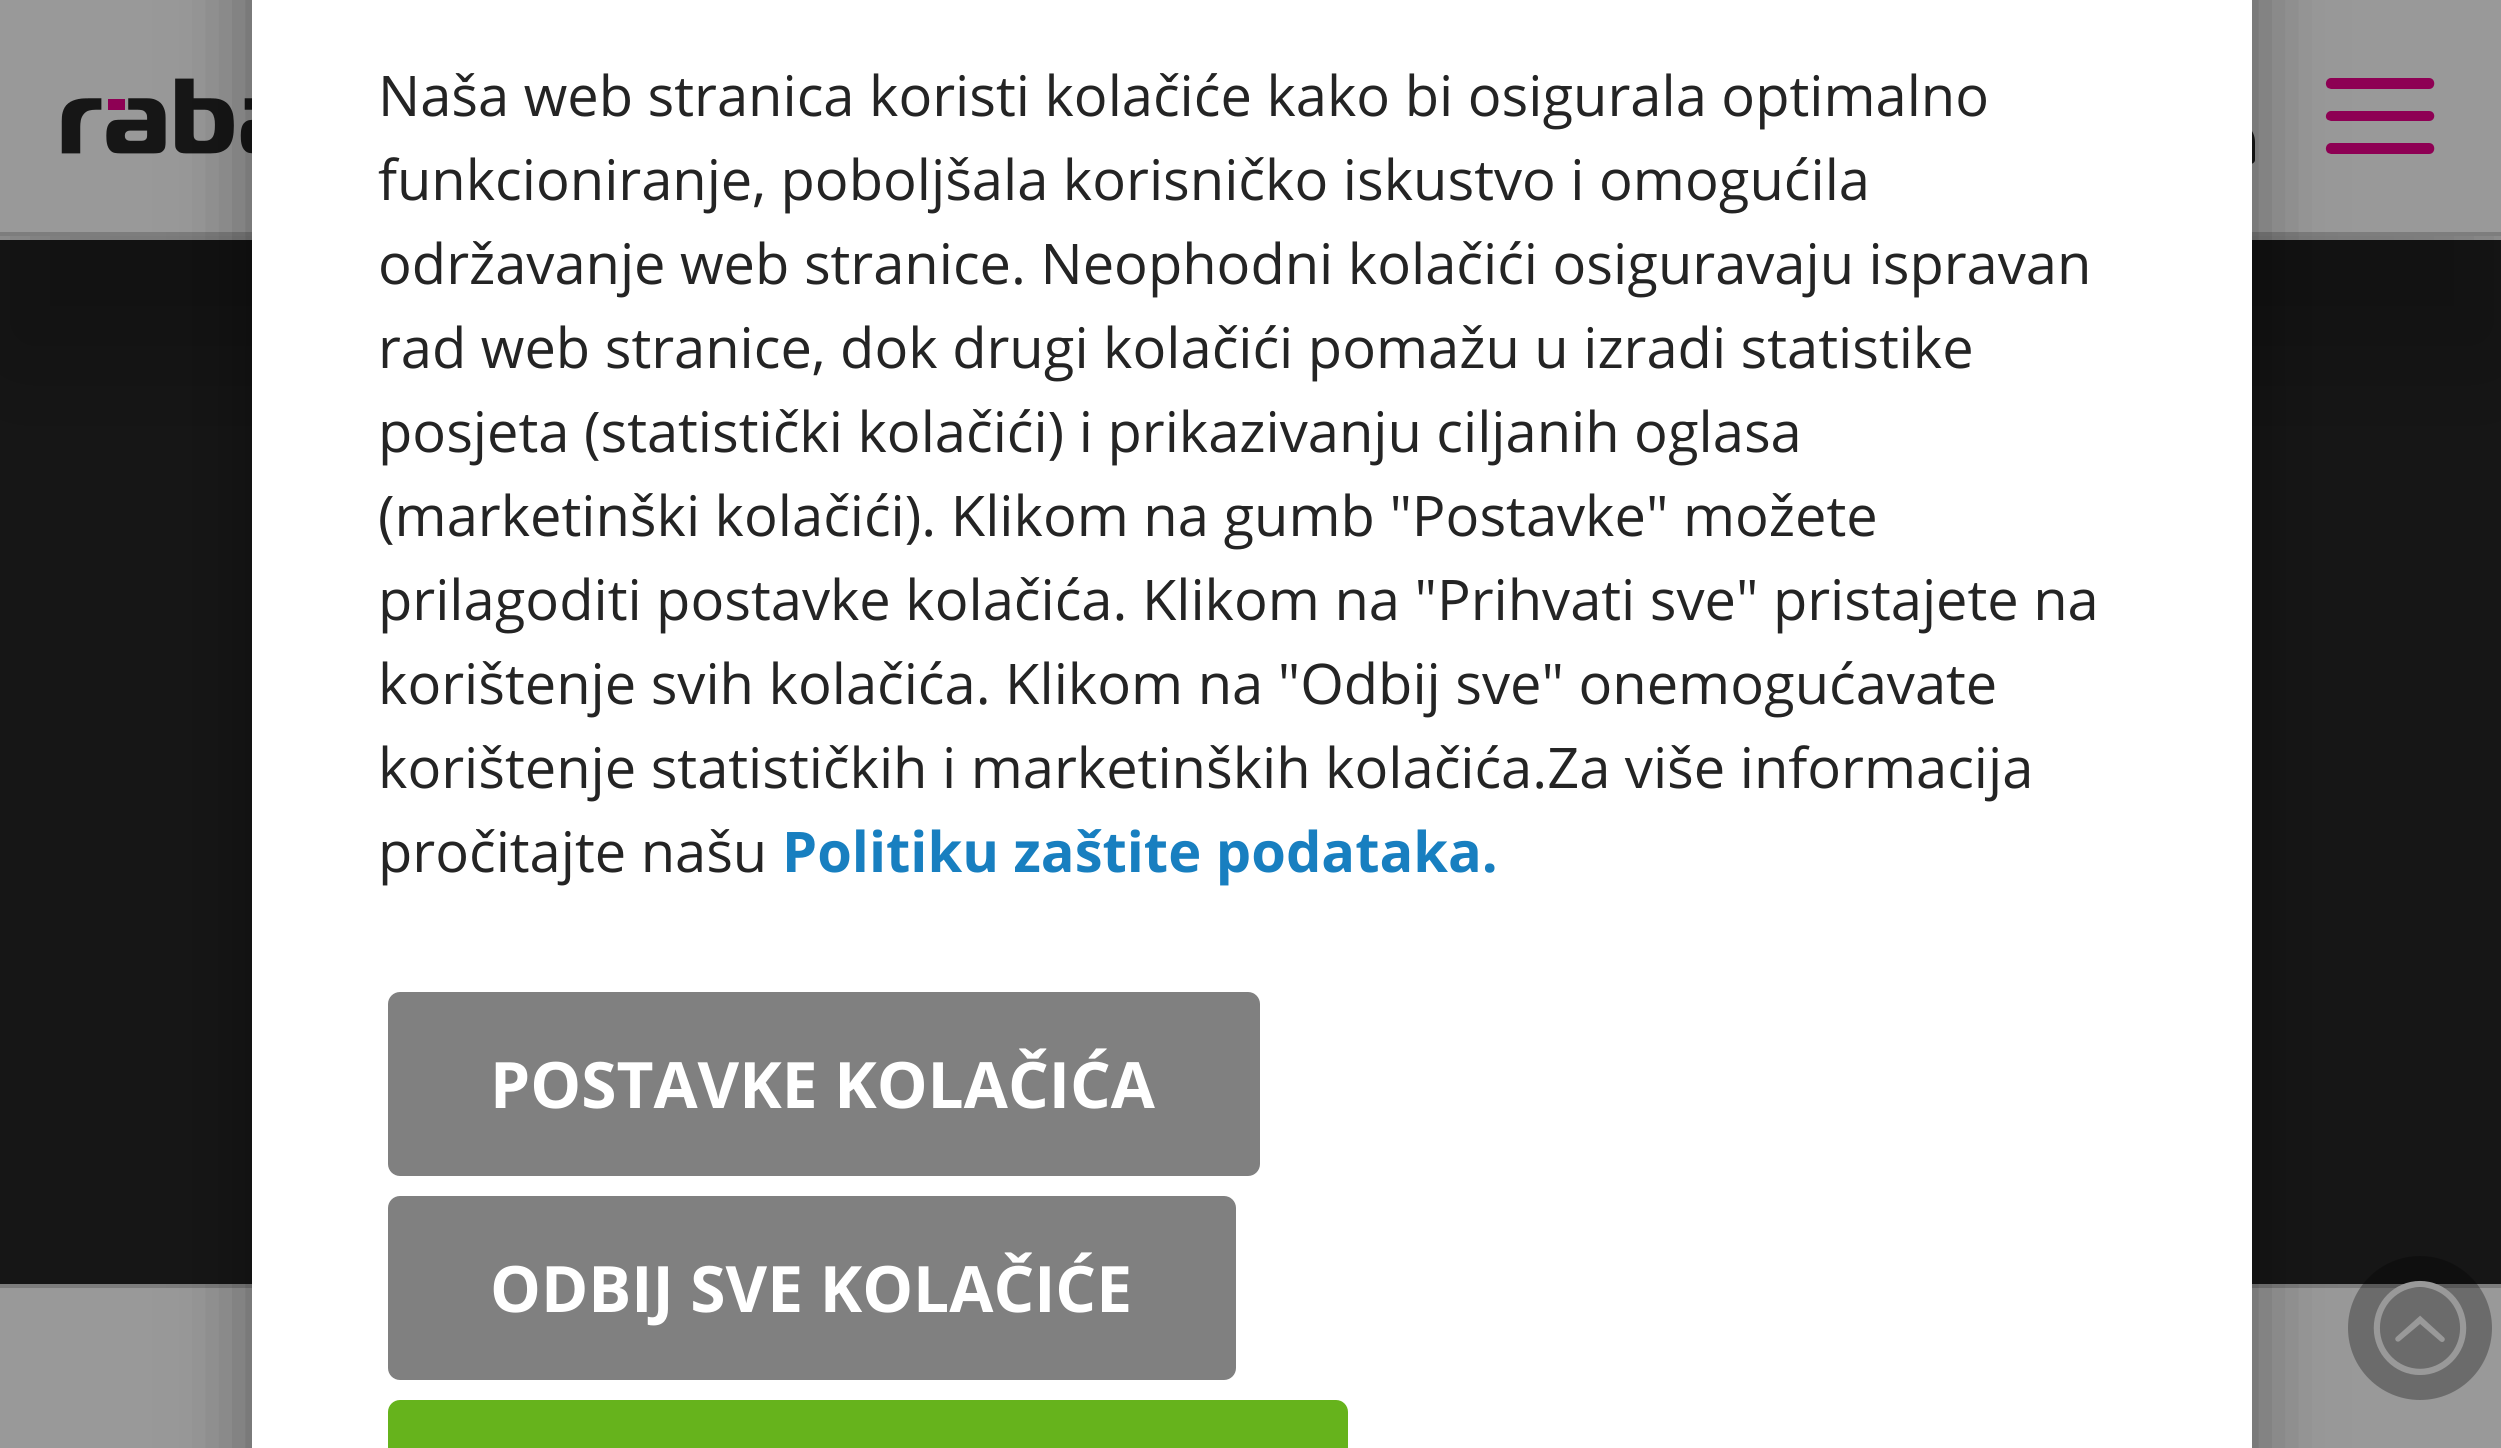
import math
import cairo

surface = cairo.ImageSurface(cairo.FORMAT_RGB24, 2501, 1448)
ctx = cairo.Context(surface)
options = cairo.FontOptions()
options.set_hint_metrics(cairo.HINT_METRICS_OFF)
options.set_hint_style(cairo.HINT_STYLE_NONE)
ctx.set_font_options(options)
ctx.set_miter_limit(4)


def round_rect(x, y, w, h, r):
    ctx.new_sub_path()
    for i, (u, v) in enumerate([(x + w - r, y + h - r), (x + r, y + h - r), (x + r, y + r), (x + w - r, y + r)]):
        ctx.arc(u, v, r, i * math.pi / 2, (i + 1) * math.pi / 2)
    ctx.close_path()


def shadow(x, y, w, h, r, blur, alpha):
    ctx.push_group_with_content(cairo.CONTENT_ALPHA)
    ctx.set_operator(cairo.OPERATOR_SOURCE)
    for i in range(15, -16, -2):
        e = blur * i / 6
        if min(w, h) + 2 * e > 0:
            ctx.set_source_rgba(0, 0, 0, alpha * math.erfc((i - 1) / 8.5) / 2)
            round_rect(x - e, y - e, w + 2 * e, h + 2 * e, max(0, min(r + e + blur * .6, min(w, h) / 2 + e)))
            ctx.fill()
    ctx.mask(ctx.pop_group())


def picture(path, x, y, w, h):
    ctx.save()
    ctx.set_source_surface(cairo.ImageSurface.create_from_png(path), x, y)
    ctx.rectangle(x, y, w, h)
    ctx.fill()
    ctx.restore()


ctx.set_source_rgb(0.6, 0.6, 0.6)
ctx.paint()
ctx.set_source_rgb(0.086, 0.086, 0.086)
ctx.rectangle(0, 240, 2501, 1044)
ctx.fill()
ctx.save()
ctx.rectangle(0, 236, 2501, 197)
ctx.clip()
ctx.set_source_rgb(0, 0, 0)
shadow(0, 120, 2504, 236, 0, 60, 0.2)
ctx.restore()
ctx.set_source_rgb(0.49, 0.49, 0.49)
ctx.rectangle(0, 232, 2501, 4)
ctx.fill()
picture("img1.png", 61, 78, 191, 76)
ctx.set_source_rgb(0.086, 0.086, 0.086)
ctx.new_path()
ctx.move_to(2180, 164)
ctx.line_to(2250, 164)
ctx.curve_to(2253, 164, 2255, 162, 2255, 160)
ctx.line_to(2255, 142)
ctx.curve_to(2255, 130, 2245, 120, 2233, 120)
ctx.line_to(2198, 120)
ctx.curve_to(2186, 120, 2176, 130, 2176, 142)
ctx.line_to(2176, 160)
ctx.curve_to(2176, 162, 2178, 164, 2180, 164)
ctx.close_path()
ctx.fill()
ctx.set_source_rgb(0.557, 0, 0.329)
ctx.new_path()
ctx.move_to(2331, 143)
ctx.curve_to(2326, 143, 2324, 150, 2328, 153)
ctx.line_to(2331, 154)
ctx.line_to(2429, 154)
ctx.curve_to(2436, 154, 2436, 143, 2429, 143)
ctx.close_path()
ctx.move_to(2331, 78)
ctx.curve_to(2326, 78, 2324, 85, 2328, 88)
ctx.line_to(2331, 89)
ctx.line_to(2429, 89)
ctx.curve_to(2436, 89, 2436, 78, 2429, 78)
ctx.close_path()
ctx.move_to(2331, 111)
ctx.curve_to(2326, 111, 2324, 118, 2328, 120)
ctx.line_to(2331, 121)
ctx.line_to(2429, 121)
ctx.curve_to(2436, 121, 2436, 111, 2429, 111)
ctx.close_path()
ctx.fill()
ctx.set_source_rgb(0.49, 0.49, 0.49)
ctx.rectangle(0, 1284, 2501, 4)
ctx.fill()
ctx.set_source_rgba(0, 0, 0, 0.3)
ctx.arc(2420, 1328, 72, 0, 2 * math.pi)
ctx.fill()
ctx.set_source_rgb(0, 0, 0)
shadow(252, -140, 2000, 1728, 20, 40, 0.4)
ctx.set_source_rgb(1, 1, 1)
ctx.rectangle(252, 0, 2000, 1448)
ctx.fill()
ctx.select_font_face("Open Sans")
ctx.set_font_size(56)
ctx.set_source_rgb(0.141, 0.141, 0.141)
ctx.move_to(378, 116)
ctx.show_text("Naša web stranica koristi kolačiće kako bi osigurala optimalno")
ctx.move_to(378, 200)
ctx.show_text("funkcioniranje, poboljšala korisničko iskustvo i omogućila")
ctx.move_to(378, 284)
ctx.show_text("održavanje web stranice. Neophodni kolačići osiguravaju ispravan")
ctx.move_to(378, 368)
ctx.show_text("rad web stranice, dok drugi kolačići pomažu u izradi statistike")
ctx.move_to(378, 452)
ctx.show_text("posjeta (statistički kolačići) i prikazivanju ciljanih oglasa")
ctx.move_to(378, 536)
ctx.show_text("(marketinški kolačići). Klikom na gumb \"Postavke\" možete")
ctx.move_to(378, 620)
ctx.show_text("prilagoditi postavke kolačića. Klikom na \"Prihvati sve\" pristajete na")
ctx.move_to(378, 704)
ctx.show_text("korištenje svih kolačića. Klikom na \"Odbij sve\" onemogućavate")
ctx.move_to(378, 788)
ctx.show_text("korištenje statističkih i marketinških kolačića.Za više informacija")
ctx.move_to(378, 872)
ctx.show_text("pročitajte našu")
ctx.select_font_face("Open Sans", cairo.FONT_SLANT_NORMAL, cairo.FONT_WEIGHT_BOLD)
ctx.set_source_rgb(0.094, 0.498, 0.753)
ctx.move_to(782, 872)
ctx.show_text("Politiku zaštite podataka.")
ctx.set_source_rgb(0.502, 0.502, 0.502)
round_rect(390, 994, 868, 180, 10)
ctx.fill_preserve()
ctx.set_line_width(4)
ctx.stroke()
ctx.set_font_size(64)
ctx.set_source_rgb(1, 1, 1)
ctx.move_to(490, 1108)
ctx.show_text("POSTAVKE KOLAČIĆA")
ctx.set_source_rgb(0.502, 0.502, 0.502)
round_rect(390, 1198, 844, 180, 10)
ctx.fill_preserve()
ctx.stroke()
ctx.set_source_rgb(1, 1, 1)
ctx.move_to(490, 1312)
ctx.show_text("ODBIJ SVE KOLAČIĆE")
ctx.set_source_rgb(0.4, 0.702, 0.11)
round_rect(390, 1402, 956, 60, 10)
ctx.fill_preserve()
ctx.stroke()
picture("img2.png", 2373, 1280, 94, 95)
surface.write_to_png("page.png")
